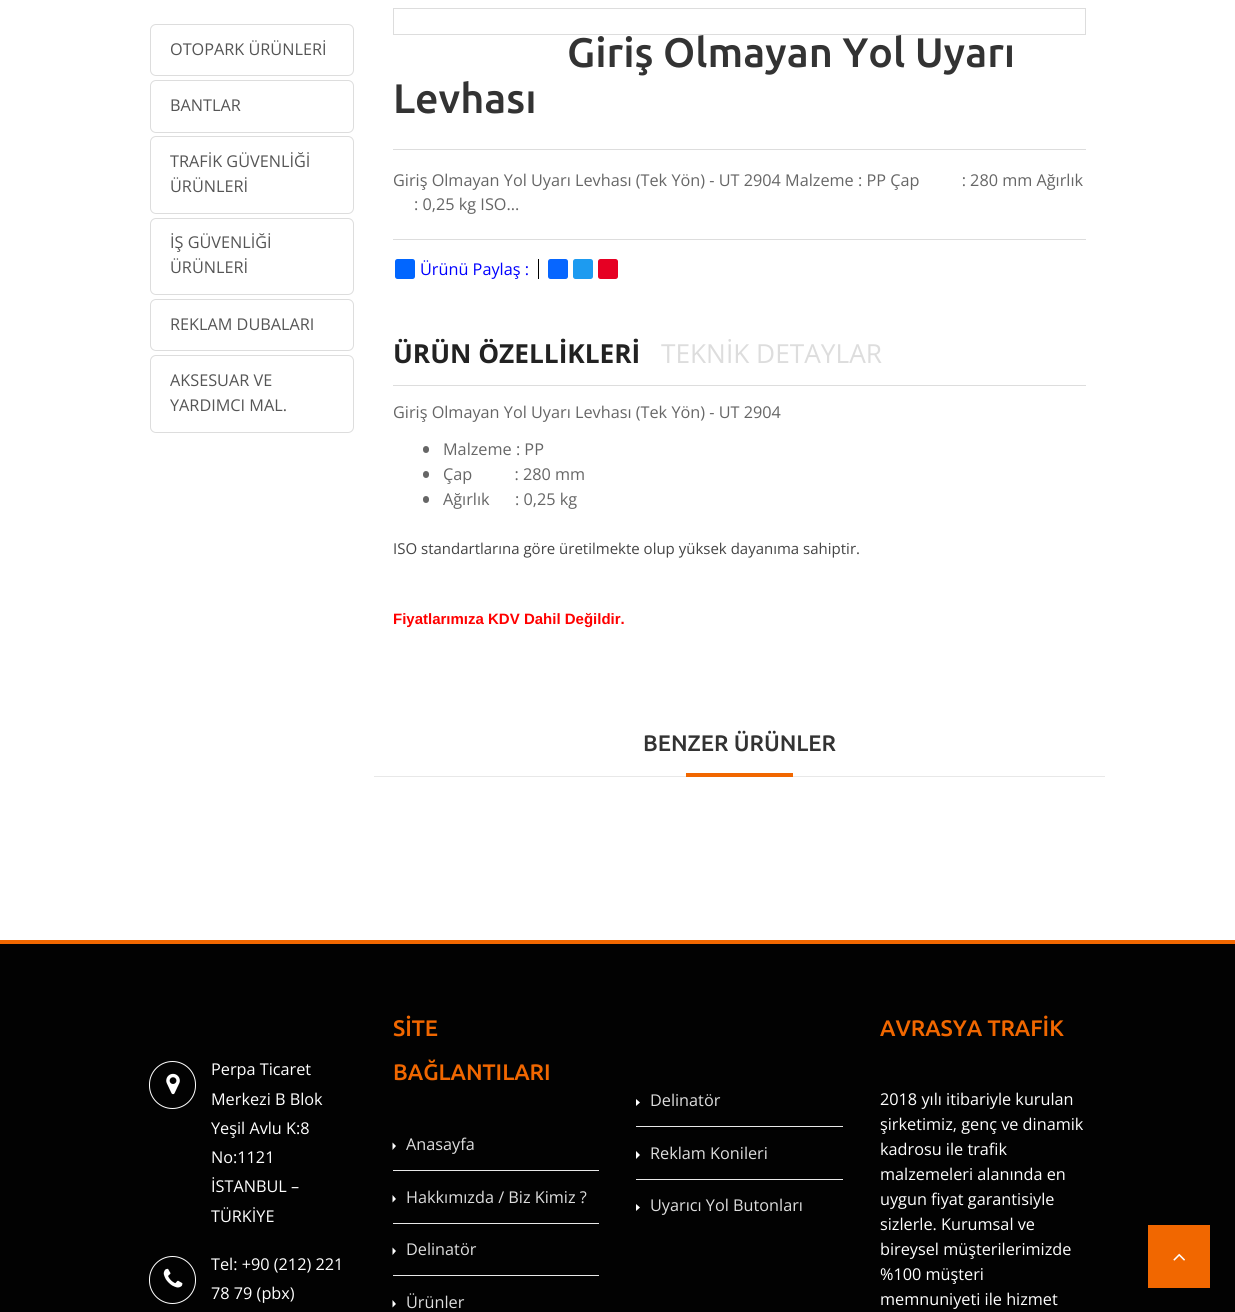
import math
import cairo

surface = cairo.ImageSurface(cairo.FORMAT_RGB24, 1235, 1312)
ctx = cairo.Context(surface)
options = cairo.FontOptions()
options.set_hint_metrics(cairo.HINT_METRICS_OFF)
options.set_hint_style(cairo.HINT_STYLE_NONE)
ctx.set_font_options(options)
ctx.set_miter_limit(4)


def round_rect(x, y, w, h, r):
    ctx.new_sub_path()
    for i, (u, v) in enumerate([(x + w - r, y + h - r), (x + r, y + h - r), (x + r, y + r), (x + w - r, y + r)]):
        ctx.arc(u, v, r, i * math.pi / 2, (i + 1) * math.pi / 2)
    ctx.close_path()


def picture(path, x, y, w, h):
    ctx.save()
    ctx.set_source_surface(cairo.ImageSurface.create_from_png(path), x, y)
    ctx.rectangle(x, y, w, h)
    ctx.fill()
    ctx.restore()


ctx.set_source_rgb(1, 1, 1)
ctx.paint()
round_rect(150.5, 24.5, 203, 51, 5.5)
ctx.set_source_rgb(0.867, 0.867, 0.867)
ctx.set_line_width(1)
ctx.stroke()
ctx.select_font_face("Open Sans")
ctx.set_font_size(16.25)
ctx.set_source_rgb(0.333, 0.333, 0.333)
ctx.move_to(170, 55)
ctx.show_text("OTOPARK ÜRÜNLERİ")
round_rect(150.5, 80.5, 203, 52, 5.5)
ctx.set_source_rgb(0.867, 0.867, 0.867)
ctx.stroke()
ctx.set_source_rgb(0.333, 0.333, 0.333)
ctx.move_to(170, 111)
ctx.show_text("BANTLAR")
round_rect(150.5, 136.5, 203, 77, 5.5)
ctx.set_source_rgb(0.867, 0.867, 0.867)
ctx.stroke()
ctx.set_source_rgb(0.333, 0.333, 0.333)
ctx.move_to(170, 167)
ctx.show_text("TRAFİK GÜVENLİĞİ")
ctx.move_to(170, 192)
ctx.show_text("ÜRÜNLERİ")
round_rect(150.5, 218.5, 203, 76, 5.5)
ctx.set_source_rgb(0.867, 0.867, 0.867)
ctx.stroke()
ctx.set_source_rgb(0.333, 0.333, 0.333)
ctx.move_to(170, 248)
ctx.show_text("İŞ GÜVENLİĞİ")
ctx.move_to(170, 273)
ctx.show_text("ÜRÜNLERİ")
round_rect(150.5, 299.5, 203, 51, 5.5)
ctx.set_source_rgb(0.867, 0.867, 0.867)
ctx.stroke()
ctx.set_source_rgb(0.333, 0.333, 0.333)
ctx.move_to(170, 330)
ctx.show_text("REKLAM DUBALARI")
round_rect(150.5, 355.5, 203, 77, 5.5)
ctx.set_source_rgb(0.867, 0.867, 0.867)
ctx.stroke()
ctx.set_source_rgb(0.333, 0.333, 0.333)
ctx.move_to(170, 386)
ctx.show_text("AKSESUAR VE")
ctx.move_to(170, 411)
ctx.show_text("YARDIMCI MAL.")
ctx.rectangle(393.5, 8.5, 692, 26)
ctx.set_source_rgb(0.867, 0.867, 0.867)
ctx.stroke()
ctx.select_font_face("Ubuntu Medium")
ctx.set_font_size(41.25)
ctx.set_source_rgb(0.2, 0.2, 0.2)
ctx.move_to(567, 67)
ctx.show_text("Giriş Olmayan Yol Uyarı")
ctx.move_to(393, 113)
ctx.show_text("Levhası")
ctx.set_source_rgb(0.867, 0.867, 0.867)
ctx.rectangle(393, 149, 693, 1)
ctx.fill()
ctx.rectangle(393, 239, 693, 1)
ctx.fill()
ctx.select_font_face("Open Sans")
ctx.set_font_size(16.25)
ctx.set_source_rgb(0.4, 0.4, 0.4)
ctx.move_to(393, 186)
ctx.show_text("Giriş Olmayan Yol Uyarı Levhası (Tek Yön) - UT 2904 Malzeme : PP Çap          : 280 mm Ağırlık")
ctx.move_to(414, 210)
ctx.show_text(": 0,25 kg ISO...")
ctx.set_source_rgb(0.004, 0.4, 1)
round_rect(395, 259, 20, 20, 2.5)
ctx.fill()
ctx.set_source_rgb(0, 0, 1)
ctx.move_to(420, 275)
ctx.show_text("Ürünü Paylaş :")
ctx.set_source_rgb(0, 0, 0)
ctx.rectangle(538, 259, 1, 20)
ctx.fill()
ctx.set_source_rgb(0.031, 0.4, 1)
round_rect(548, 259, 20, 20, 2.5)
ctx.fill()
ctx.set_source_rgb(0.114, 0.608, 0.941)
round_rect(573, 259, 20, 20, 2.5)
ctx.fill()
ctx.set_source_rgb(0.902, 0, 0.137)
round_rect(598, 259, 20, 20, 2.5)
ctx.fill()
ctx.set_source_rgb(0.867, 0.867, 0.867)
ctx.rectangle(393, 385, 693, 1)
ctx.fill()
ctx.select_font_face("Open Sans", cairo.FONT_SLANT_NORMAL, cairo.FONT_WEIGHT_BOLD)
ctx.set_font_size(26.25)
ctx.set_source_rgb(0.133, 0.133, 0.133)
ctx.move_to(393, 363)
ctx.show_text("ÜRÜN ÖZELLİKLERİ")
ctx.select_font_face("Open Sans")
ctx.set_source_rgb(0.867, 0.867, 0.867)
ctx.move_to(661, 363)
ctx.show_text("TEKNİK DETAYLAR")
ctx.set_font_size(16.25)
ctx.set_source_rgb(0.4, 0.4, 0.4)
ctx.move_to(393, 418)
ctx.show_text("Giriş Olmayan Yol Uyarı Levhası (Tek Yön) - UT 2904")
round_rect(423, 446, 6, 7, 3)
ctx.fill()
ctx.move_to(443, 455)
ctx.show_text("Malzeme : PP")
round_rect(423, 471, 6, 7, 3)
ctx.fill()
ctx.move_to(443, 480)
ctx.show_text("Çap          : 280 mm")
round_rect(423, 496, 6, 7, 3)
ctx.fill()
ctx.move_to(443, 505)
ctx.show_text("Ağırlık      : 0,25 kg")
ctx.set_font_size(15)
ctx.set_source_rgb(0.267, 0.267, 0.267)
ctx.move_to(393, 554)
ctx.show_text("ISO standartlarına göre üretilmekte olup yüksek dayanıma sahiptir.")
ctx.select_font_face("Liberation Sans", cairo.FONT_SLANT_NORMAL, cairo.FONT_WEIGHT_BOLD)
ctx.set_source_rgb(1, 0, 0)
ctx.move_to(393, 624)
ctx.show_text("Fiyatlarımıza KDV Dahil Değildir.")
ctx.select_font_face("Ubuntu Medium")
ctx.set_font_size(22.5)
ctx.set_source_rgb(0.2, 0.2, 0.2)
ctx.move_to(643, 751)
ctx.show_text("BENZER ÜRÜNLER")
ctx.set_source_rgb(0.91, 0.91, 0.91)
ctx.rectangle(374, 776, 731, 1)
ctx.fill()
ctx.set_source_rgb(0.945, 0.404, 0)
ctx.rectangle(686, 773, 107, 4)
ctx.fill()
ctx.set_source_rgb(0.008, 0.008, 0.008)
ctx.rectangle(0, 944, 1235, 368)
ctx.fill()
ctx.set_source_rgb(0.945, 0.404, 0)
ctx.rectangle(0, 940, 1235, 4)
ctx.fill()
round_rect(149.5, 1061.5, 46, 47, 23)
ctx.set_source_rgb(1, 1, 1)
ctx.stroke()
picture("img1.png", 166, 1073, 14, 22)
ctx.select_font_face("Open Sans")
ctx.set_font_size(16.25)
ctx.move_to(211, 1075)
ctx.show_text("Perpa Ticaret")
ctx.move_to(211, 1105)
ctx.show_text("Merkezi B Blok")
ctx.move_to(211, 1134)
ctx.show_text("Yeşil Avlu K:8")
ctx.move_to(211, 1163)
ctx.show_text("No:1121")
ctx.move_to(211, 1192)
ctx.show_text("İSTANBUL –")
ctx.move_to(211, 1222)
ctx.show_text("TÜRKİYE")
round_rect(149.5, 1256.5, 46, 47, 23)
ctx.stroke()
picture("img2.png", 163, 1268, 20, 20)
ctx.move_to(211, 1270)
ctx.show_text("Tel: +90 (212) 221")
ctx.move_to(211, 1299)
ctx.show_text("78 79 (pbx)")
ctx.select_font_face("Ubuntu Medium")
ctx.set_font_size(22.5)
ctx.set_source_rgb(0.945, 0.404, 0)
ctx.move_to(393, 1036)
ctx.show_text("SİTE")
ctx.move_to(393, 1080)
ctx.show_text("BAĞLANTILARI")
ctx.set_source_rgb(0.91, 0.91, 0.91)
ctx.rectangle(393, 1170, 206, 1)
ctx.fill()
ctx.set_source_rgb(1, 1, 1)
ctx.new_path()
ctx.move_to(392.5, 1150)
ctx.line_to(392.5, 1142.5)
ctx.line_to(396, 1146)
ctx.close_path()
ctx.fill()
ctx.select_font_face("Open Sans")
ctx.set_font_size(16.25)
ctx.set_source_rgb(0.867, 0.867, 0.867)
ctx.move_to(406, 1150)
ctx.show_text("Anasayfa")
ctx.set_source_rgb(0.91, 0.91, 0.91)
ctx.rectangle(393, 1223, 206, 1)
ctx.fill()
ctx.set_source_rgb(1, 1, 1)
ctx.new_path()
ctx.move_to(392.5, 1202.5)
ctx.line_to(392.5, 1195)
ctx.line_to(396, 1199)
ctx.close_path()
ctx.fill()
ctx.set_source_rgb(0.867, 0.867, 0.867)
ctx.move_to(406, 1203)
ctx.show_text("Hakkımızda / Biz Kimiz ?")
ctx.set_source_rgb(0.91, 0.91, 0.91)
ctx.rectangle(393, 1275, 206, 1)
ctx.fill()
ctx.set_source_rgb(1, 1, 1)
ctx.new_path()
ctx.move_to(392.5, 1255)
ctx.line_to(392.5, 1247.5)
ctx.line_to(396, 1251)
ctx.close_path()
ctx.fill()
ctx.set_source_rgb(0.867, 0.867, 0.867)
ctx.move_to(406, 1255)
ctx.show_text("Delinatör")
ctx.set_source_rgb(1, 1, 1)
ctx.new_path()
ctx.move_to(392.5, 1307.5)
ctx.line_to(392.5, 1300)
ctx.line_to(396, 1304)
ctx.close_path()
ctx.fill()
ctx.set_source_rgb(0.867, 0.867, 0.867)
ctx.move_to(406, 1308)
ctx.show_text("Ürünler")
ctx.set_source_rgb(0.91, 0.91, 0.91)
ctx.rectangle(636, 1126, 207, 1)
ctx.fill()
ctx.set_source_rgb(1, 1, 1)
ctx.new_path()
ctx.move_to(636, 1106)
ctx.line_to(636, 1099)
ctx.line_to(640, 1102.5)
ctx.close_path()
ctx.fill()
ctx.set_source_rgb(0.867, 0.867, 0.867)
ctx.move_to(650, 1106)
ctx.show_text("Delinatör")
ctx.set_source_rgb(0.91, 0.91, 0.91)
ctx.rectangle(636, 1179, 207, 1)
ctx.fill()
ctx.set_source_rgb(1, 1, 1)
ctx.new_path()
ctx.move_to(636, 1159)
ctx.line_to(636, 1151)
ctx.line_to(640, 1155)
ctx.close_path()
ctx.fill()
ctx.set_source_rgb(0.867, 0.867, 0.867)
ctx.move_to(650, 1159)
ctx.show_text("Reklam Konileri")
ctx.set_source_rgb(1, 1, 1)
ctx.new_path()
ctx.move_to(636, 1211)
ctx.line_to(636, 1204)
ctx.line_to(640, 1207.5)
ctx.close_path()
ctx.fill()
ctx.set_source_rgb(0.867, 0.867, 0.867)
ctx.move_to(650, 1211)
ctx.show_text("Uyarıcı Yol Butonları")
ctx.select_font_face("Ubuntu Medium")
ctx.set_font_size(22.5)
ctx.set_source_rgb(0.945, 0.404, 0)
ctx.move_to(880, 1036)
ctx.show_text("AVRASYA TRAFİK")
ctx.select_font_face("Open Sans")
ctx.set_font_size(16.25)
ctx.set_source_rgb(1, 1, 1)
ctx.move_to(880, 1105)
ctx.show_text("2018 yılı itibariyle kurulan")
ctx.move_to(880, 1130)
ctx.show_text("şirketimiz, genç ve dinamik")
ctx.move_to(880, 1155)
ctx.show_text("kadrosu ile trafik")
ctx.move_to(880, 1180)
ctx.show_text("malzemeleri alanında en")
ctx.move_to(880, 1205)
ctx.show_text("uygun fiyat garantisiyle")
ctx.move_to(880, 1230)
ctx.show_text("sizlerle. Kurumsal ve")
ctx.move_to(880, 1255)
ctx.show_text("bireysel müşterilerimizde")
ctx.move_to(880, 1280)
ctx.show_text("%100 müşteri")
ctx.move_to(880, 1305)
ctx.show_text("memnuniyeti ile hizmet")
ctx.set_source_rgb(0.945, 0.404, 0)
ctx.rectangle(1148, 1225, 62, 63)
ctx.fill()
picture("img3.png", 1173, 1253, 12, 8)
surface.write_to_png("page.png")
